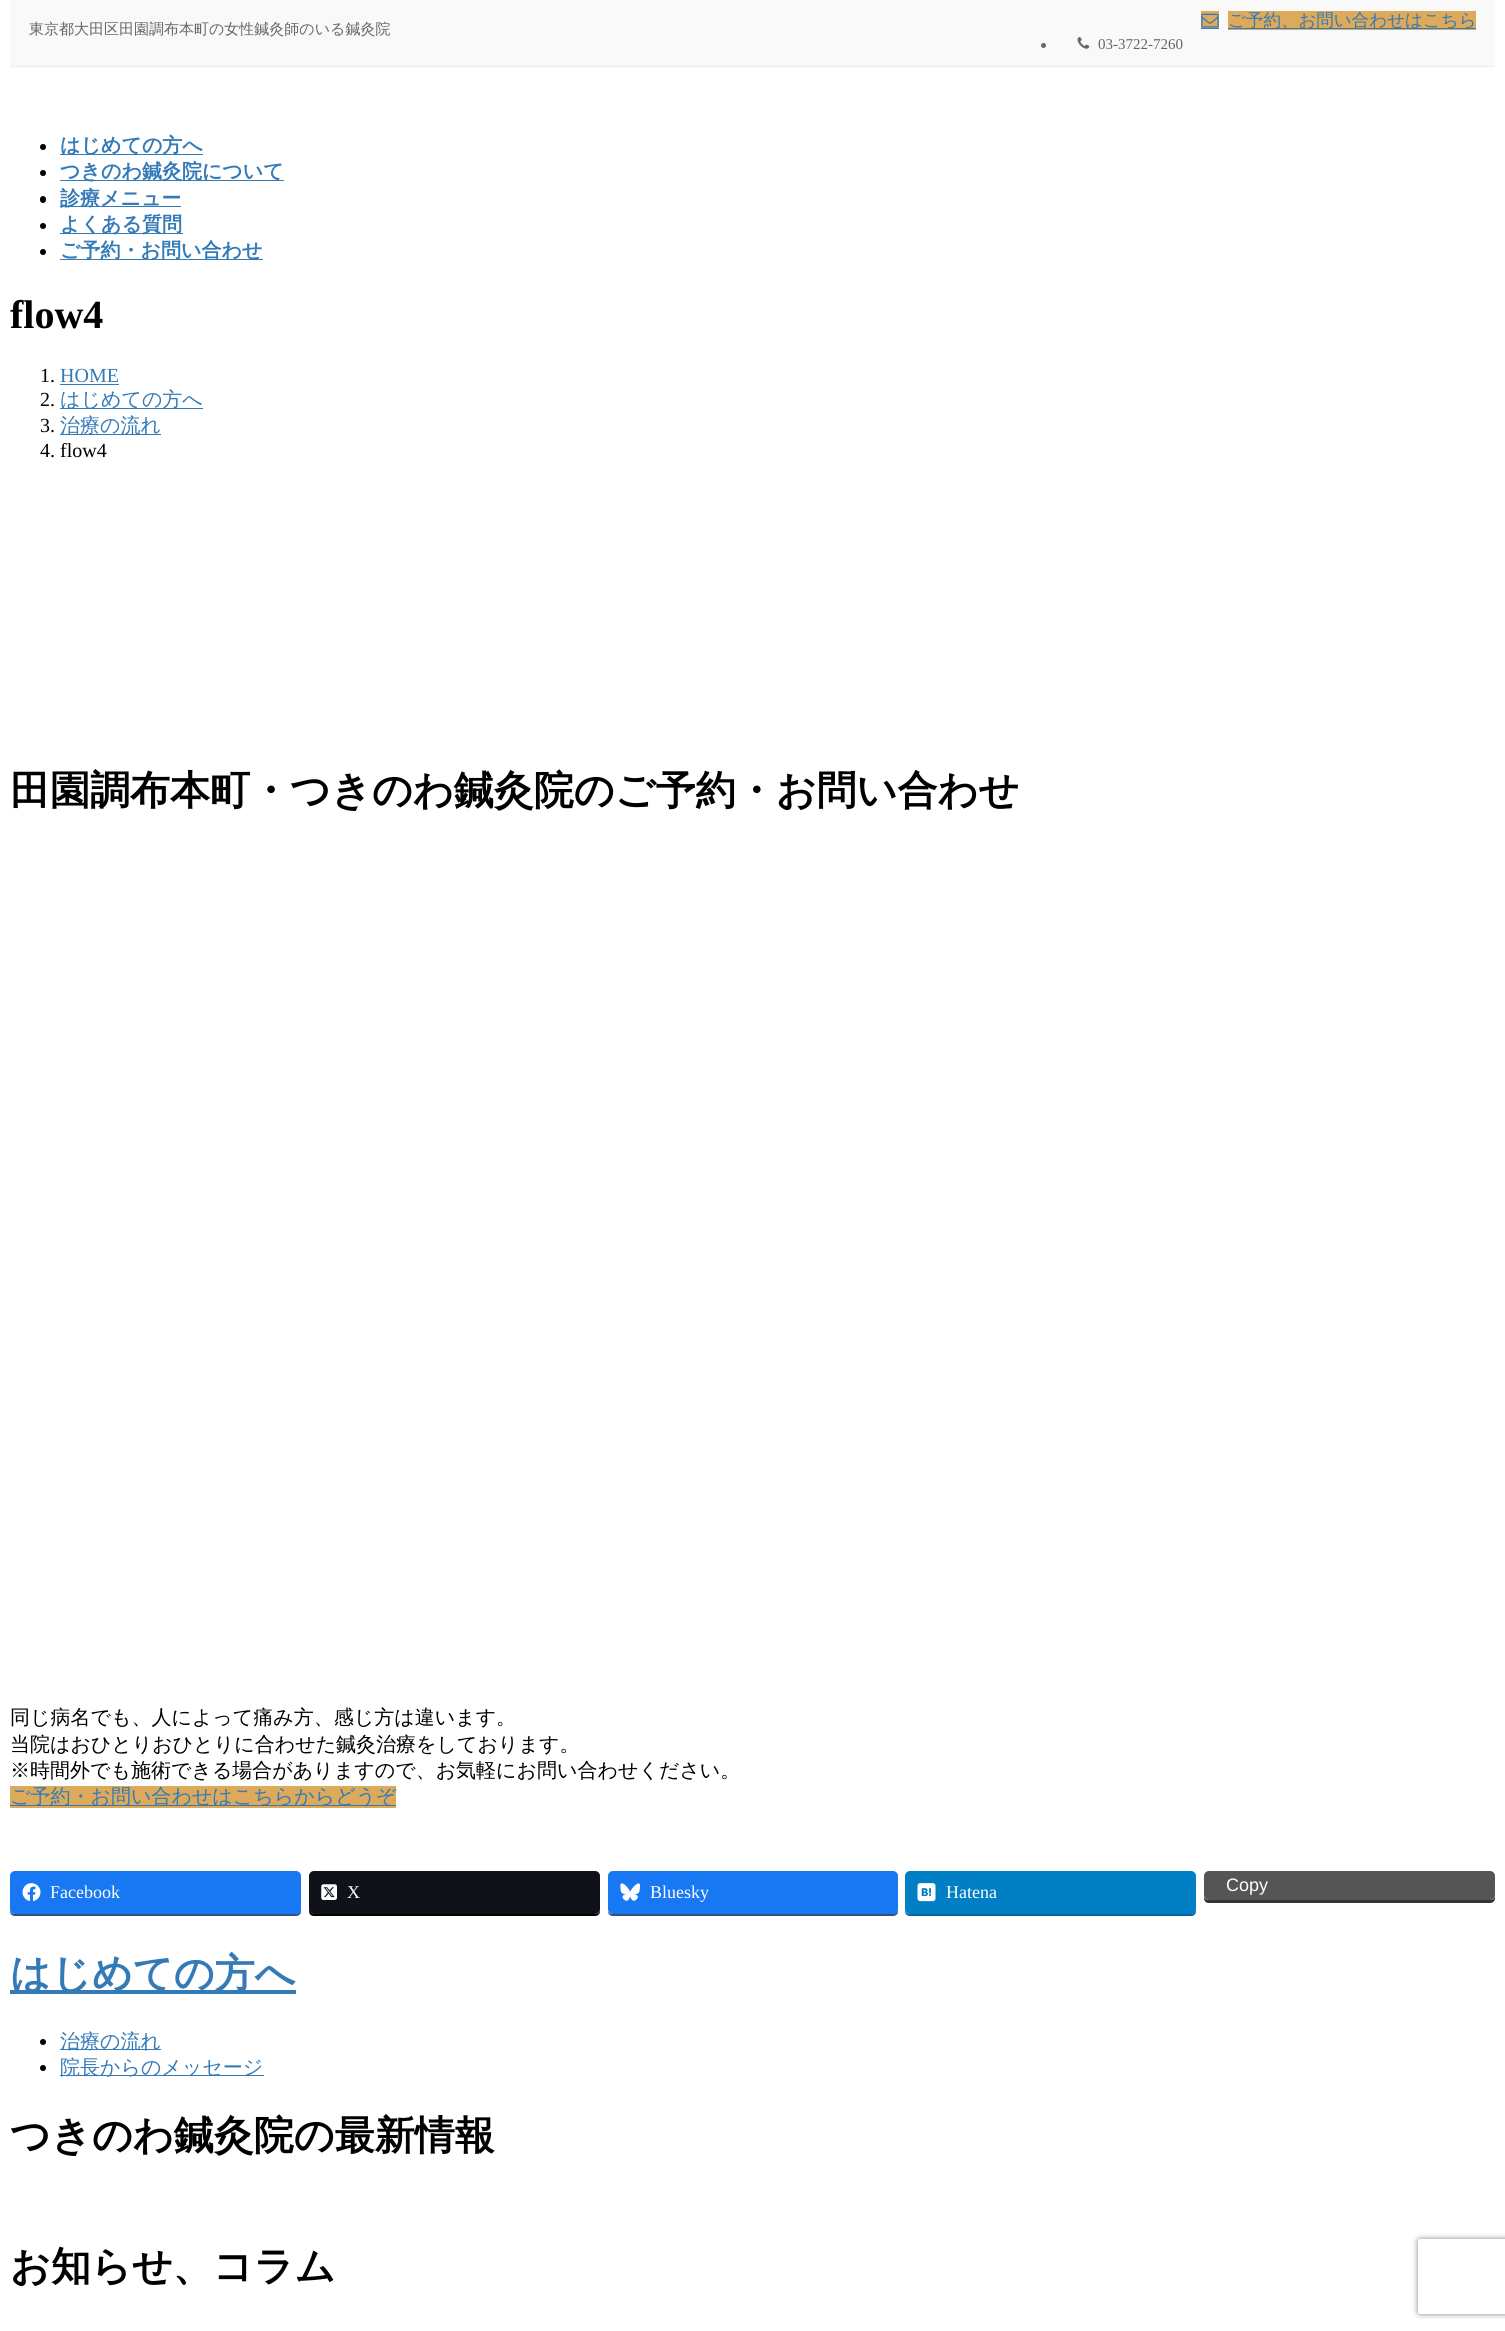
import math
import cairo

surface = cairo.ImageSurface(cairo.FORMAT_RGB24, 1505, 2331)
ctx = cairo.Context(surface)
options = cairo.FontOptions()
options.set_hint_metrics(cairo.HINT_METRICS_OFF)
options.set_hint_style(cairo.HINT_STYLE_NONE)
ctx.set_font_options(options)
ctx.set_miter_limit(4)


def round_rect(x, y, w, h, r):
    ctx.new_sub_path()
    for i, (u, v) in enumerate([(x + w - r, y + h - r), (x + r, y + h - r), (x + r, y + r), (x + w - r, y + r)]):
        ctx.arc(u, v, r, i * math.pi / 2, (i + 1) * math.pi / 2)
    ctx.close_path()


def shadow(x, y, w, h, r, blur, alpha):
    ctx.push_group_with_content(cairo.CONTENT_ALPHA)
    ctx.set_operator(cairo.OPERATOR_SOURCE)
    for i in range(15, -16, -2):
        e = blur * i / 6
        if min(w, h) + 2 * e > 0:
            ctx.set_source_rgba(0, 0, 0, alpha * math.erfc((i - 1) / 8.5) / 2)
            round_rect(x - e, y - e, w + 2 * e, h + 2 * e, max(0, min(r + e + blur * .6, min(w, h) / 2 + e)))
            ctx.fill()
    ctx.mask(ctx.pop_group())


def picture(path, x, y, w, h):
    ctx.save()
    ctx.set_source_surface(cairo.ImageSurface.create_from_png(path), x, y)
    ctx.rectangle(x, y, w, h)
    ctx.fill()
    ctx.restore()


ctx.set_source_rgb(1, 1, 1)
ctx.paint()
ctx.set_source_rgb(0.976, 0.976, 0.976)
ctx.rectangle(10, 0, 1485, 68)
ctx.fill()
ctx.set_source_rgb(0.937, 0.937, 0.937)
ctx.rectangle(10, 66, 1485, 1)
ctx.fill()
ctx.select_font_face("WenQuanYi Zen Hei Medium")
ctx.set_font_size(15)
ctx.set_source_rgb(0.4, 0.4, 0.4)
ctx.move_to(29, 34)
ctx.show_text("東京都大田区田園調布本町の女性鍼灸師のいる鍼灸院")
ctx.set_source_rgb(0.867, 0.663, 0.353)
ctx.rectangle(1201, 11, 18, 17)
ctx.fill()
picture("img1.png", 1201, 13, 18, 15)
ctx.rectangle(1228, 11, 248, 19)
ctx.fill()
ctx.set_source_rgb(0.2, 0.478, 0.718)
ctx.rectangle(1228, 28, 248, 1)
ctx.fill()
ctx.set_font_size(17.5)
ctx.move_to(1228, 26)
ctx.show_text("ご予約、お問い合わせはこちら")
ctx.rectangle(1201, 28, 18, 1)
ctx.fill()
ctx.set_source_rgb(0.4, 0.4, 0.4)
ctx.arc(1043.5, 45.5, 2.5, 0, 2 * math.pi)
ctx.fill()
picture("img2.png", 1077, 37, 13, 12)
ctx.select_font_face("Liberation Serif")
ctx.set_font_size(15)
ctx.move_to(1098, 49)
ctx.show_text("03-3722-7260")
ctx.set_source_rgb(0, 0, 0)
ctx.new_path()
ctx.arc(43, 147, 3, 0, 2 * math.pi)
ctx.fill()
ctx.set_source_rgb(0.2, 0.478, 0.718)
ctx.rectangle(60, 154, 143, 1)
ctx.fill()
ctx.select_font_face("WenQuanYi Zen Hei", cairo.FONT_SLANT_NORMAL, cairo.FONT_WEIGHT_BOLD)
ctx.set_font_size(20)
ctx.move_to(60, 152)
ctx.show_text("はじめての方へ")
ctx.set_source_rgb(0, 0, 0)
ctx.new_path()
ctx.arc(43, 173, 3, 0, 2 * math.pi)
ctx.fill()
ctx.set_source_rgb(0.2, 0.478, 0.718)
ctx.rectangle(60, 180, 224, 1)
ctx.fill()
ctx.move_to(60, 178)
ctx.show_text("つきのわ鍼灸院について")
ctx.set_source_rgb(0, 0, 0)
round_rect(40, 196, 6, 7, 3)
ctx.fill()
ctx.set_source_rgb(0.2, 0.478, 0.718)
ctx.rectangle(60, 206, 121, 1)
ctx.fill()
ctx.move_to(60, 205)
ctx.show_text("診療メニュー")
ctx.set_source_rgb(0, 0, 0)
ctx.new_path()
ctx.arc(43, 226, 3, 0, 2 * math.pi)
ctx.fill()
ctx.set_source_rgb(0.2, 0.478, 0.718)
ctx.rectangle(60, 233, 123, 1)
ctx.fill()
ctx.move_to(60, 231)
ctx.show_text("よくある質問")
ctx.set_source_rgb(0, 0, 0)
ctx.new_path()
ctx.arc(43, 252, 3, 0, 2 * math.pi)
ctx.fill()
ctx.set_source_rgb(0.2, 0.478, 0.718)
ctx.rectangle(60, 259, 203, 1)
ctx.fill()
ctx.move_to(60, 257)
ctx.show_text("ご予約・お問い合わせ")
ctx.select_font_face("Liberation Serif", cairo.FONT_SLANT_NORMAL, cairo.FONT_WEIGHT_BOLD)
ctx.set_font_size(40)
ctx.set_source_rgb(0, 0, 0)
ctx.move_to(10, 328)
ctx.show_text("flow4")
ctx.select_font_face("Liberation Serif")
ctx.set_font_size(20)
ctx.move_to(40, 382)
ctx.show_text("1.")
ctx.set_source_rgb(0.2, 0.478, 0.718)
ctx.move_to(60, 382)
ctx.show_text("HOME")
ctx.rectangle(60, 384, 59, 1)
ctx.fill()
ctx.set_source_rgb(0, 0, 0)
ctx.move_to(40, 406)
ctx.show_text("2.")
ctx.set_source_rgb(0.2, 0.478, 0.718)
ctx.rectangle(60, 408, 143, 1)
ctx.fill()
ctx.select_font_face("WenQuanYi Zen Hei Medium")
ctx.move_to(60, 406)
ctx.show_text("はじめての方へ")
ctx.select_font_face("Liberation Serif")
ctx.set_source_rgb(0, 0, 0)
ctx.move_to(40, 432)
ctx.show_text("3.")
ctx.set_source_rgb(0.2, 0.478, 0.718)
ctx.rectangle(60, 434, 101, 1)
ctx.fill()
ctx.select_font_face("WenQuanYi Zen Hei Medium")
ctx.move_to(60, 432)
ctx.show_text("治療の流れ")
ctx.select_font_face("Liberation Serif")
ctx.set_source_rgb(0, 0, 0)
ctx.move_to(40, 457)
ctx.show_text("4. flow4")
ctx.select_font_face("WenQuanYi Zen Hei", cairo.FONT_SLANT_NORMAL, cairo.FONT_WEIGHT_BOLD)
ctx.set_font_size(40)
ctx.move_to(10, 804)
ctx.show_text("田園調布本町・つきのわ鍼灸院のご予約・お問い合わせ")
ctx.select_font_face("WenQuanYi Zen Hei Medium")
ctx.set_font_size(20)
ctx.move_to(10, 1724)
ctx.show_text("同じ病名でも、人によって痛み方、感じ方は違います。")
ctx.move_to(10, 1751)
ctx.show_text("当院はおひとりおひとりに合わせた鍼灸治療をしております。")
ctx.move_to(10, 1777)
ctx.show_text("※時間外でも施術できる場合がありますので、お気軽にお問い合わせください。")
ctx.set_source_rgb(0.867, 0.663, 0.353)
ctx.rectangle(10, 1786, 386, 22)
ctx.fill()
ctx.set_source_rgb(0.2, 0.478, 0.718)
ctx.rectangle(10, 1805, 386, 1)
ctx.fill()
ctx.move_to(10, 1803)
ctx.show_text("ご予約・お問い合わせはこちらからどうぞ")
ctx.set_source_rgb(0.204, 0.306, 0.518)
ctx.new_path()
ctx.move_to(10, 1909)
ctx.line_to(10, 1911)
ctx.curve_to(10, 1914, 12, 1916, 15, 1916)
ctx.line_to(296, 1916)
ctx.curve_to(299, 1916, 301, 1914, 301, 1911)
ctx.line_to(301, 1910)
ctx.curve_to(300, 1912, 298, 1914, 296, 1914)
ctx.line_to(15, 1914)
ctx.curve_to(12, 1914, 10, 1912, 10, 1909)
ctx.close_path()
ctx.fill()
ctx.set_source_rgb(0.094, 0.467, 0.949)
round_rect(10, 1871, 291, 43, 5)
ctx.fill()
picture("img3.png", 22, 1883, 19, 19)
ctx.select_font_face("Liberation Serif")
ctx.set_font_size(18)
ctx.set_source_rgb(1, 1, 1)
ctx.move_to(50, 1898)
ctx.show_text("Facebook")
ctx.set_source_rgb(0, 0, 0)
ctx.new_path()
ctx.move_to(309, 1910)
ctx.line_to(309, 1911)
ctx.curve_to(309, 1914, 311, 1916, 314, 1916)
ctx.line_to(595, 1916)
ctx.curve_to(598, 1916, 600, 1914, 600, 1911)
ctx.line_to(600, 1909)
ctx.curve_to(600, 1912, 598, 1914, 595, 1914)
ctx.line_to(314, 1914)
ctx.curve_to(312, 1914, 310, 1912, 309, 1910)
ctx.close_path()
ctx.fill()
ctx.set_source_rgb(0.059, 0.078, 0.098)
round_rect(309, 1871, 291, 43, 5)
ctx.fill()
picture("img4.png", 321, 1884, 16, 16)
ctx.set_source_rgb(1, 1, 1)
ctx.move_to(347, 1898)
ctx.show_text("X")
ctx.set_source_rgb(0.204, 0.306, 0.518)
ctx.new_path()
ctx.move_to(608, 1911)
ctx.curve_to(608, 1914, 610, 1916, 613, 1916)
ctx.line_to(893, 1916)
ctx.curve_to(896, 1916, 898, 1914, 898, 1911)
ctx.line_to(898, 1879)
ctx.line_to(898, 1877)
ctx.line_to(898, 1909)
ctx.curve_to(898, 1912, 895, 1914, 892, 1914)
ctx.line_to(612, 1914)
ctx.curve_to(611, 1914, 609, 1913, 608, 1911)
ctx.close_path()
ctx.fill()
ctx.set_source_rgb(0.094, 0.467, 0.949)
round_rect(608, 1871, 290, 43, 5)
ctx.fill()
picture("img5.png", 620, 1883, 20, 18)
ctx.set_source_rgb(1, 1, 1)
ctx.move_to(650, 1898)
ctx.show_text("Bluesky")
ctx.set_source_rgb(0, 0.404, 0.624)
ctx.new_path()
ctx.move_to(905, 1909)
ctx.line_to(905, 1911)
ctx.curve_to(905, 1914, 907, 1916, 910, 1916)
ctx.line_to(1191, 1916)
ctx.curve_to(1194, 1916, 1196, 1914, 1196, 1911)
ctx.line_to(1196, 1910)
ctx.curve_to(1195, 1912, 1193, 1914, 1191, 1914)
ctx.line_to(910, 1914)
ctx.curve_to(907, 1914, 905, 1912, 905, 1909)
ctx.close_path()
ctx.fill()
ctx.set_source_rgb(0, 0.498, 0.773)
round_rect(905, 1871, 291, 43, 5)
ctx.fill()
picture("img6.png", 917, 1883, 19, 19)
ctx.set_source_rgb(1, 1, 1)
ctx.move_to(946, 1898)
ctx.show_text("Hatena")
ctx.set_source_rgb(0.2, 0.2, 0.2)
ctx.new_path()
ctx.move_to(1204, 1897)
ctx.line_to(1204, 1898)
ctx.curve_to(1204, 1901, 1206, 1903, 1209, 1903)
ctx.line_to(1490, 1903)
ctx.curve_to(1493, 1903, 1495, 1901, 1495, 1898)
ctx.line_to(1495, 1895)
ctx.curve_to(1495, 1898, 1493, 1900, 1490, 1900)
ctx.line_to(1209, 1900)
ctx.curve_to(1207, 1900, 1205, 1899, 1204, 1897)
ctx.close_path()
ctx.fill()
ctx.set_source_rgb(0.333, 0.333, 0.333)
round_rect(1204, 1871, 291, 29, 5)
ctx.fill()
ctx.select_font_face("Liberation Sans")
ctx.set_source_rgb(1, 1, 1)
ctx.move_to(1226, 1891)
ctx.show_text("Copy")
ctx.set_source_rgb(0.2, 0.478, 0.718)
ctx.rectangle(10, 1990, 286, 4)
ctx.fill()
ctx.select_font_face("WenQuanYi Zen Hei", cairo.FONT_SLANT_NORMAL, cairo.FONT_WEIGHT_BOLD)
ctx.set_font_size(40)
ctx.move_to(10, 1987)
ctx.show_text("はじめての方へ")
ctx.set_source_rgb(0, 0, 0)
ctx.new_path()
ctx.arc(43, 2042, 3, 0, 2 * math.pi)
ctx.fill()
ctx.set_source_rgb(0.2, 0.478, 0.718)
ctx.rectangle(60, 2049, 101, 1)
ctx.fill()
ctx.select_font_face("WenQuanYi Zen Hei Medium")
ctx.set_font_size(20)
ctx.move_to(60, 2048)
ctx.show_text("治療の流れ")
ctx.set_source_rgb(0, 0, 0)
ctx.new_path()
ctx.arc(43, 2068, 3, 0, 2 * math.pi)
ctx.fill()
ctx.set_source_rgb(0.2, 0.478, 0.718)
ctx.rectangle(60, 2075, 204, 1)
ctx.fill()
ctx.move_to(60, 2074)
ctx.show_text("院長からのメッセージ")
ctx.select_font_face("WenQuanYi Zen Hei", cairo.FONT_SLANT_NORMAL, cairo.FONT_WEIGHT_BOLD)
ctx.set_font_size(40)
ctx.set_source_rgb(0, 0, 0)
ctx.move_to(10, 2149)
ctx.show_text("つきのわ鍼灸院の最新情報")
ctx.move_to(10, 2280)
ctx.show_text("お知らせ、コラム")
ctx.save()
ctx.set_fill_rule(cairo.FILL_RULE_EVEN_ODD)
ctx.new_path()
ctx.move_to(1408, 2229)
ctx.line_to(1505, 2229)
ctx.line_to(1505, 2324)
ctx.line_to(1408, 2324)
ctx.close_path()
ctx.move_to(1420.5, 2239)
ctx.line_to(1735.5, 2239)
ctx.curve_to(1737, 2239, 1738, 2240, 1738, 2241.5)
ctx.line_to(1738, 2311.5)
ctx.curve_to(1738, 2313, 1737, 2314, 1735.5, 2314)
ctx.line_to(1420.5, 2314)
ctx.curve_to(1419, 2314, 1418, 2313, 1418, 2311.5)
ctx.line_to(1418, 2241.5)
ctx.curve_to(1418, 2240, 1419, 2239, 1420.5, 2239)
ctx.close_path()
ctx.clip()
ctx.set_source_rgb(0.502, 0.502, 0.502)
shadow(1418, 2239, 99, 75, 2.5, 3, 1)
ctx.restore()
surface.write_to_png("page.png")
